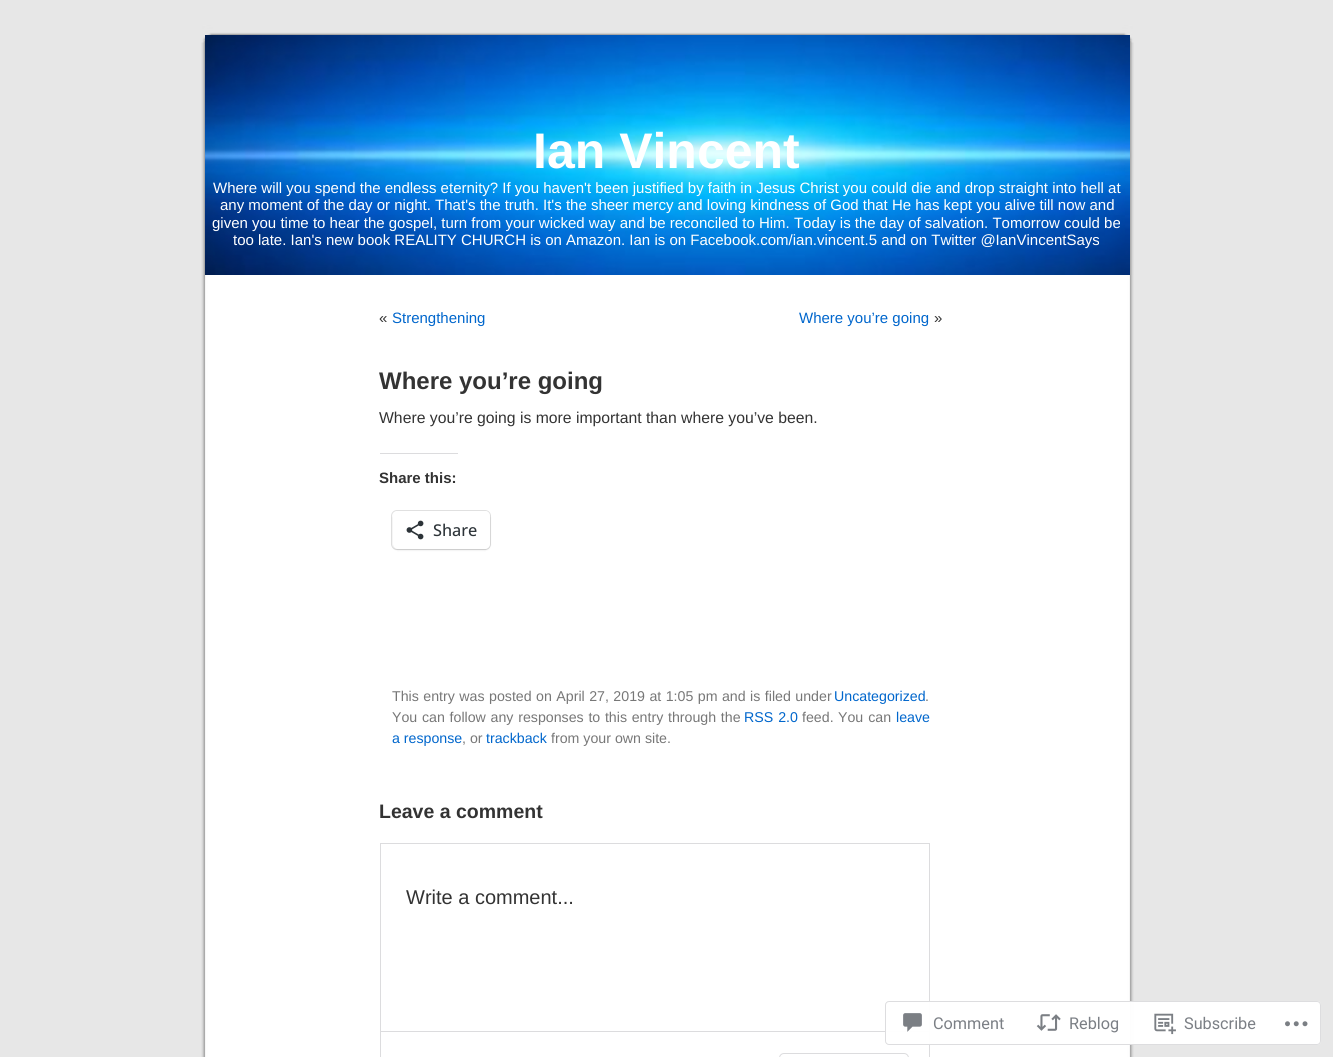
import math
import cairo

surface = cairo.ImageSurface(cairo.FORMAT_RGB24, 1333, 1057)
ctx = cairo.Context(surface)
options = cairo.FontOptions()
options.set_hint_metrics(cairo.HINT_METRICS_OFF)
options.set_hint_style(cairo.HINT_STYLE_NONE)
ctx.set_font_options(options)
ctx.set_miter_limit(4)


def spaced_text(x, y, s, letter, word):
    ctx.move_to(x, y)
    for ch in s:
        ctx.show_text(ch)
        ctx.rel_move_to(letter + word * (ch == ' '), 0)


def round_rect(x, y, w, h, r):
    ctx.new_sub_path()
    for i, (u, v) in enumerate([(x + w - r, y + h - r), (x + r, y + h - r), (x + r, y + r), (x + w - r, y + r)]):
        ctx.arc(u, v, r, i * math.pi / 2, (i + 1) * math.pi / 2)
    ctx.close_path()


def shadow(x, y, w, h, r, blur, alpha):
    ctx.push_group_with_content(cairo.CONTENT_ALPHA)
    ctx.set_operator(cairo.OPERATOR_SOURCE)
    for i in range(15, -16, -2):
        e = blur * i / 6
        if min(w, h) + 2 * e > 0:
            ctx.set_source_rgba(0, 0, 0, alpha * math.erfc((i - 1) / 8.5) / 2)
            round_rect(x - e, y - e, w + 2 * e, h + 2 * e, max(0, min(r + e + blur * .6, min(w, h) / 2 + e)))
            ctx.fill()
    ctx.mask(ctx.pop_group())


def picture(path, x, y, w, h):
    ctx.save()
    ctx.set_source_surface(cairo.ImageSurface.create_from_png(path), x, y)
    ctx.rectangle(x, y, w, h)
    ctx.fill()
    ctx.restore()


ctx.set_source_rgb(0.906, 0.906, 0.906)
ctx.paint()
picture("img1.png", 201, 275, 933, 782)
picture("img2.png", 201, 25, 933, 250)
picture("img3.png", 205, 35, 925, 240)
ctx.select_font_face("Liberation Sans", cairo.FONT_SLANT_NORMAL, cairo.FONT_WEIGHT_BOLD)
ctx.set_font_size(50)
ctx.set_source_rgb(1, 1, 1)
ctx.move_to(533, 168)
ctx.show_text("Ian Vincent")
ctx.select_font_face("Liberation Sans")
ctx.set_font_size(15)
ctx.move_to(213, 193)
ctx.show_text("Where will you spend the endless eternity? If you haven't been justified by faith in Jesus Christ you could die and drop straight into hell at")
ctx.move_to(220, 210)
ctx.show_text("any moment of the day or night. That's the truth. It's the sheer mercy and loving kindness of God that He has kept you alive till now and")
ctx.move_to(212, 228)
ctx.show_text("given you time to hear the gospel, turn from your wicked way and be reconciled to Him. Today is the day of salvation. Tomorrow could be")
ctx.move_to(233, 245)
ctx.show_text("too late. Ian's new book REALITY CHURCH is on Amazon. Ian is on Facebook.com/ian.vincent.5 and on Twitter @IanVincentSays")
ctx.set_source_rgb(0.2, 0.2, 0.2)
ctx.move_to(379, 323)
ctx.show_text("«")
ctx.set_source_rgb(0, 0.4, 0.8)
ctx.move_to(392, 323)
ctx.show_text("Strengthening")
ctx.move_to(799, 323)
ctx.show_text("Where you’re going")
ctx.set_source_rgb(0.2, 0.2, 0.2)
ctx.move_to(934, 323)
ctx.show_text("»")
ctx.select_font_face("Liberation Sans", cairo.FONT_SLANT_NORMAL, cairo.FONT_WEIGHT_BOLD)
ctx.set_font_size(24)
ctx.move_to(379, 389)
ctx.show_text("Where you’re going")
ctx.select_font_face("Liberation Sans")
ctx.set_font_size(15.75)
ctx.move_to(379, 423)
ctx.show_text("Where you’re going is more important than where you’ve been.")
ctx.set_source_rgb(0.863, 0.863, 0.871)
ctx.rectangle(380, 453, 78, 1)
ctx.fill()
ctx.select_font_face("Liberation Sans", cairo.FONT_SLANT_NORMAL, cairo.FONT_WEIGHT_BOLD)
ctx.set_font_size(15)
ctx.set_source_rgb(0.2, 0.2, 0.2)
ctx.move_to(379, 483)
ctx.show_text("Share this:")
round_rect(391.5, 510.5, 99, 39, 5.5)
ctx.set_source_rgb(0.878, 0.878, 0.878)
ctx.set_line_width(1)
ctx.stroke()
ctx.set_source_rgb(0, 0, 0)
shadow(393, 513, 97, 37, 5, 1, 0.12)
ctx.set_source_rgb(1, 1, 1)
round_rect(393, 511, 97, 38, 5)
ctx.fill()
picture("img4.png", 406, 520, 18, 20)
ctx.select_font_face("Open Sans Medium")
ctx.set_font_size(16.25)
ctx.set_source_rgb(0.173, 0.2, 0.22)
ctx.move_to(433, 536)
ctx.show_text("Share")
ctx.select_font_face("Liberation Sans")
ctx.set_font_size(14.2)
ctx.set_source_rgb(0.467, 0.467, 0.467)
spaced_text(392, 701, "This entry was posted on April 27, 2019 at 1:05 pm and is filed under", 0, 0.5)
ctx.set_source_rgb(0, 0.4, 0.8)
ctx.move_to(834, 701)
ctx.show_text("Uncategorized")
ctx.set_source_rgb(0.467, 0.467, 0.467)
ctx.move_to(925, 701)
ctx.show_text(".")
spaced_text(392, 722, "You can follow any responses to this entry through the", 0, 0.75)
ctx.set_source_rgb(0, 0.4, 0.8)
spaced_text(744, 722, "RSS 2.0", 0, 1)
ctx.set_source_rgb(0.467, 0.467, 0.467)
ctx.move_to(802, 722)
ctx.show_text("feed.")
spaced_text(838, 722, "You can", 0, 1)
ctx.set_source_rgb(0, 0.4, 0.8)
ctx.move_to(896, 722)
ctx.show_text("leave")
ctx.move_to(392, 743)
ctx.show_text("a response")
ctx.set_source_rgb(0.467, 0.467, 0.467)
ctx.move_to(462, 743)
ctx.show_text(", or")
ctx.set_source_rgb(0, 0.4, 0.8)
ctx.move_to(486, 743)
ctx.show_text("trackback")
ctx.set_source_rgb(0.467, 0.467, 0.467)
ctx.move_to(551, 743)
ctx.show_text("from your own site.")
ctx.select_font_face("Liberation Sans", cairo.FONT_SLANT_NORMAL, cairo.FONT_WEIGHT_BOLD)
ctx.set_font_size(19.5)
ctx.set_source_rgb(0.2, 0.2, 0.2)
ctx.move_to(379, 818)
ctx.show_text("Leave a comment")
ctx.rectangle(380.5, 843.5, 549, 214)
ctx.set_source_rgb(0.863, 0.863, 0.871)
ctx.stroke()
ctx.select_font_face("Liberation Sans")
ctx.set_font_size(20)
ctx.set_source_rgb(0.2, 0.2, 0.2)
ctx.move_to(406, 904)
ctx.show_text("Write a comment...")
ctx.set_source_rgb(0.863, 0.863, 0.871)
ctx.rectangle(381, 1031, 548, 1)
ctx.fill()
round_rect(779.5, 1053.5, 129, 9, 4.5)
ctx.stroke()
ctx.set_source_rgba(1, 1, 1, 0.98)
round_rect(885, 1001, 436, 44, 4)
ctx.fill()
round_rect(885.5, 1001.5, 435, 43, 3.5)
ctx.set_source_rgba(0.863, 0.863, 0.871, 0.98)
ctx.stroke()
picture("img5.png", 903, 1013, 19, 19)
ctx.select_font_face("Roboto")
ctx.set_font_size(16.25)
ctx.set_source_rgb(0.482, 0.498, 0.522)
ctx.move_to(933, 1029)
ctx.show_text("Comment")
picture("img6.png", 1036, 1014, 25, 17)
ctx.move_to(1069, 1029)
ctx.show_text("Reblog")
picture("img7.png", 1154, 1013, 22, 22)
ctx.move_to(1184, 1029)
ctx.show_text("Subscribe")
picture("img8.png", 1285, 1021, 23, 6)
surface.write_to_png("page.png")
